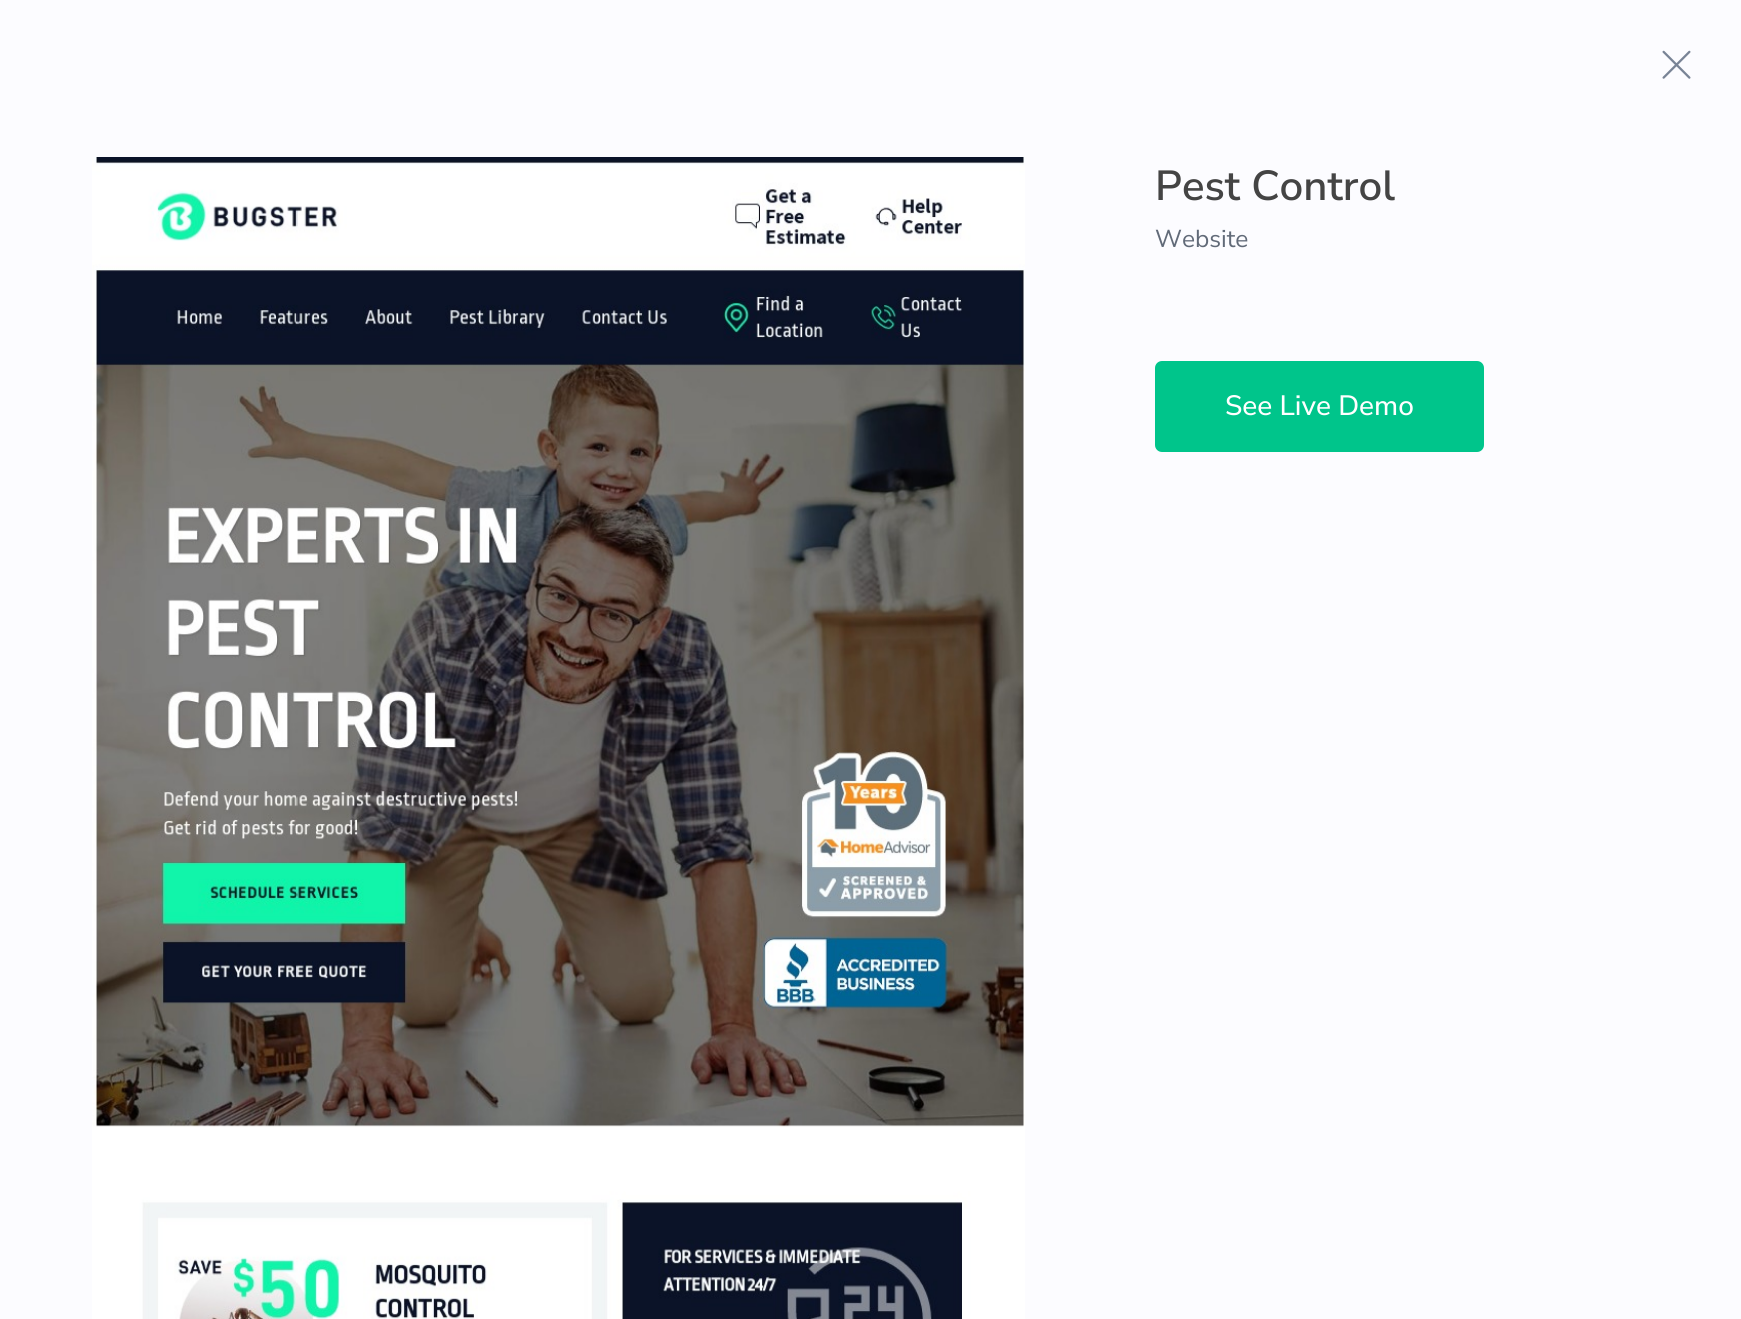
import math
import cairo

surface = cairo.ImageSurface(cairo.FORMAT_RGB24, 1741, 1319)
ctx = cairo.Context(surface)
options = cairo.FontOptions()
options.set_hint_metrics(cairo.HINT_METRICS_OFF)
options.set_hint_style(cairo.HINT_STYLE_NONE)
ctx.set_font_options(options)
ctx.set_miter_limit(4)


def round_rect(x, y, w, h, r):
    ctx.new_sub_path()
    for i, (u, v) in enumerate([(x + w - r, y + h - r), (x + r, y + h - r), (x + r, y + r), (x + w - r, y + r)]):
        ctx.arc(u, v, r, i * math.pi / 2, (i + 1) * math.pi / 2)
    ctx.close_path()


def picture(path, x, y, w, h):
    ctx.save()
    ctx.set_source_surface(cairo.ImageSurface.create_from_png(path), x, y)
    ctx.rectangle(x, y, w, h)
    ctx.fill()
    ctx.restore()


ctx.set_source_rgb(0.988, 0.988, 1)
ctx.paint()
picture("img1.png", 1662, 50, 29, 29)
picture("img2.png", 92, 157, 933, 1162)
ctx.select_font_face("Nunito Sans SemiBold")
ctx.set_font_size(42)
ctx.set_source_rgb(0.267, 0.267, 0.267)
ctx.move_to(1155, 200)
ctx.show_text("Pest Control")
ctx.select_font_face("Nunito Sans")
ctx.set_font_size(24.5)
ctx.set_source_rgb(0.38, 0.416, 0.471)
ctx.move_to(1155, 247)
ctx.show_text("Website")
ctx.set_source_rgb(0, 0.773, 0.545)
round_rect(1155, 361, 329, 91, 7)
ctx.fill()
ctx.select_font_face("Nunito Sans Medium")
ctx.set_font_size(28)
ctx.set_source_rgb(1, 1, 1)
ctx.move_to(1225, 415)
ctx.show_text("See Live Demo")
surface.write_to_png("page.png")
